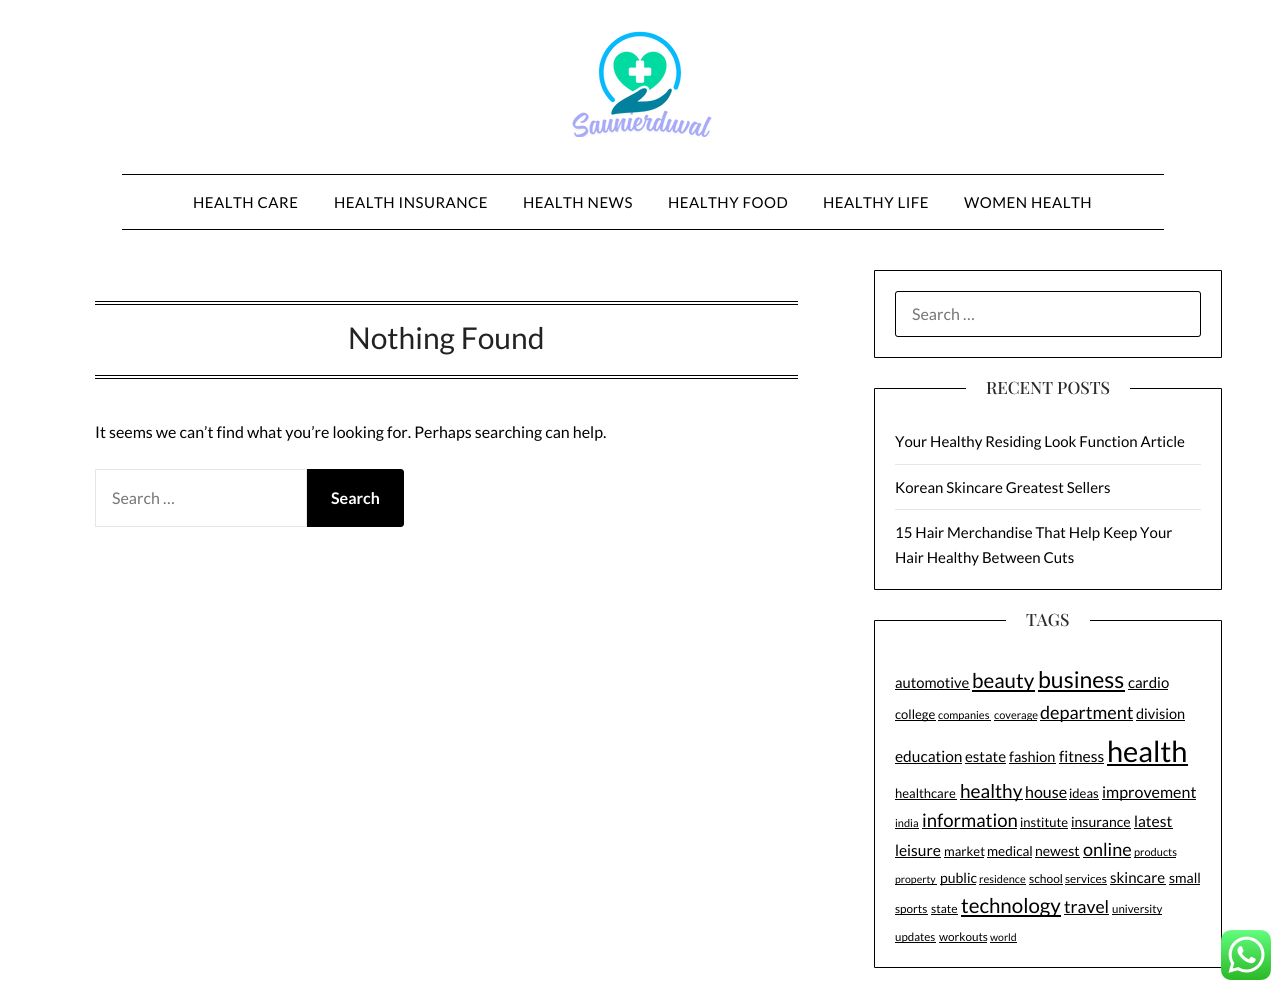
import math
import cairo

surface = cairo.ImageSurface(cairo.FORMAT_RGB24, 1286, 995)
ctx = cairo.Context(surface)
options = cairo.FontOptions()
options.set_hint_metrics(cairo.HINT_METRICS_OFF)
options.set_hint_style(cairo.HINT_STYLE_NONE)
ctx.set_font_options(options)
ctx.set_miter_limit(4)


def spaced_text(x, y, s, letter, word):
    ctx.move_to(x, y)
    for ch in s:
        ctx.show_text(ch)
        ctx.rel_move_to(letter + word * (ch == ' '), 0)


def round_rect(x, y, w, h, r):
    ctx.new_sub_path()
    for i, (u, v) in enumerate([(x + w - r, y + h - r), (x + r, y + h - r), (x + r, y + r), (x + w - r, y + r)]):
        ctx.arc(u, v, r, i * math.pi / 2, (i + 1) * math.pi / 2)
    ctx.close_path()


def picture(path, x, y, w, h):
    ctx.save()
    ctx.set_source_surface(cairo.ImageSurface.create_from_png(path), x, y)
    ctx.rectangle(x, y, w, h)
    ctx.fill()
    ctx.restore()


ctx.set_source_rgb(1, 1, 1)
ctx.paint()
picture("img1.png", 572, 31, 140, 106)
ctx.set_source_rgb(0, 0, 0)
ctx.rectangle(122, 174, 1042, 1)
ctx.fill()
ctx.rectangle(122, 229, 1042, 1)
ctx.fill()
ctx.select_font_face("Lato")
ctx.set_font_size(15)
spaced_text(193, 208, "HEALTH CARE", 0.5, 0)
spaced_text(334, 208, "HEALTH INSURANCE", 0.5, 0)
spaced_text(523, 208, "HEALTH NEWS", 0.5, 0)
spaced_text(668, 208, "HEALTHY FOOD", 0.5, 0)
spaced_text(823, 208, "HEALTHY LIFE", 0.5, 0)
spaced_text(964, 208, "WOMEN HEALTH", 0.5, 0)
ctx.rectangle(95, 301, 703, 1)
ctx.fill()
ctx.rectangle(95, 304, 703, 1)
ctx.fill()
ctx.rectangle(95, 375, 703, 1)
ctx.fill()
ctx.rectangle(95, 378, 703, 1)
ctx.fill()
ctx.set_font_size(30)
ctx.set_source_rgb(0.133, 0.133, 0.133)
ctx.move_to(348, 349)
ctx.show_text("Nothing Found")
ctx.set_font_size(16)
ctx.set_source_rgb(0, 0, 0)
ctx.move_to(95, 438)
ctx.show_text("It seems we can’t find what you’re looking for. Perhaps searching can help.")
ctx.rectangle(95.5, 469.5, 211, 57)
ctx.set_source_rgb(0.898, 0.902, 0.914)
ctx.set_line_width(1)
ctx.stroke()
ctx.set_source_rgb(0.459, 0.459, 0.459)
ctx.move_to(112, 504)
ctx.show_text("Search …")
ctx.set_source_rgb(0, 0, 0)
ctx.new_path()
ctx.move_to(307, 469)
ctx.line_to(401, 469)
ctx.curve_to(402.5, 469, 404, 470.5, 404, 472)
ctx.line_to(404, 524)
ctx.curve_to(404, 525.5, 402.5, 527, 401, 527)
ctx.line_to(307, 527)
ctx.close_path()
ctx.fill()
ctx.select_font_face("Lato", cairo.FONT_SLANT_NORMAL, cairo.FONT_WEIGHT_BOLD)
ctx.set_source_rgb(1, 1, 1)
ctx.move_to(331, 504)
ctx.show_text("Search")
round_rect(874.5, 270.5, 347, 87, 0.5)
ctx.set_source_rgb(0, 0, 0)
ctx.stroke()
round_rect(895.5, 291.5, 305, 45, 2.5)
ctx.stroke()
ctx.select_font_face("Lato")
ctx.set_source_rgb(0.459, 0.459, 0.459)
ctx.move_to(912, 320)
ctx.show_text("Search …")
round_rect(874.5, 388.5, 347, 201, 0.5)
ctx.set_source_rgb(0, 0, 0)
ctx.stroke()
ctx.set_source_rgb(1, 1, 1)
ctx.rectangle(966, 388, 164, 1)
ctx.fill()
ctx.select_font_face("Playfair Display Medium")
ctx.set_font_size(17)
ctx.set_source_rgb(0.169, 0.169, 0.169)
ctx.move_to(986, 394)
ctx.show_text("RECENT POSTS")
ctx.set_source_rgb(0.902, 0.902, 0.902)
ctx.rectangle(895, 464, 306, 1)
ctx.fill()
ctx.select_font_face("Lato")
ctx.set_font_size(15)
ctx.set_source_rgb(0, 0, 0)
ctx.move_to(895, 447)
ctx.show_text("Your Healthy Residing Look Function Article")
ctx.set_source_rgb(0.902, 0.902, 0.902)
ctx.rectangle(895, 509, 306, 1)
ctx.fill()
ctx.set_source_rgb(0, 0, 0)
ctx.move_to(895, 493)
ctx.show_text("Korean Skincare Greatest Sellers")
ctx.move_to(895, 538)
ctx.show_text("15 Hair Merchandise That Help Keep Your")
ctx.move_to(895, 563)
ctx.show_text("Hair Healthy Between Cuts")
round_rect(874.5, 620.5, 347, 347, 0.5)
ctx.stroke()
ctx.set_source_rgb(1, 1, 1)
ctx.rectangle(1006, 620, 84, 1)
ctx.fill()
ctx.select_font_face("Playfair Display Medium")
ctx.set_font_size(17)
ctx.set_source_rgb(0.169, 0.169, 0.169)
ctx.move_to(1026, 626)
ctx.show_text("TAGS")
ctx.select_font_face("Lato")
ctx.set_font_size(14.75)
ctx.set_source_rgb(0, 0, 0)
ctx.move_to(895, 688)
ctx.show_text("automotive")
ctx.rectangle(895, 689, 75, 1)
ctx.fill()
ctx.rectangle(972, 690, 63, 2)
ctx.fill()
ctx.set_font_size(20.5)
ctx.move_to(972, 688)
ctx.show_text("beauty")
ctx.set_font_size(23)
ctx.move_to(1038, 688)
ctx.show_text("business")
ctx.rectangle(1038, 690, 87, 2)
ctx.fill()
ctx.set_font_size(15)
ctx.move_to(1128, 688)
ctx.show_text("cardio")
ctx.rectangle(1128, 689, 40, 1)
ctx.fill()
ctx.rectangle(895, 720, 41, 1)
ctx.fill()
ctx.set_font_size(13)
ctx.move_to(895, 719)
ctx.show_text("college")
ctx.rectangle(938, 720, 53, 1)
ctx.fill()
ctx.set_font_size(11)
ctx.move_to(938, 719)
ctx.show_text("companies")
ctx.rectangle(994, 720, 43, 1)
ctx.fill()
ctx.move_to(994, 719)
ctx.show_text("coverage")
ctx.rectangle(1040, 720, 93, 1)
ctx.fill()
ctx.set_font_size(18)
ctx.move_to(1040, 719)
ctx.show_text("department")
ctx.set_font_size(14.5)
ctx.move_to(1136, 719)
ctx.show_text("division")
ctx.rectangle(1136, 720, 49, 1)
ctx.fill()
ctx.set_font_size(15.5)
ctx.move_to(895, 762)
ctx.show_text("education")
ctx.rectangle(895, 763, 67, 1)
ctx.fill()
ctx.set_font_size(15)
ctx.move_to(965, 762)
ctx.show_text("estate")
ctx.rectangle(965, 763, 41, 1)
ctx.fill()
ctx.set_font_size(14.5)
ctx.move_to(1009, 762)
ctx.show_text("fashion")
ctx.rectangle(1009, 763, 47, 1)
ctx.fill()
ctx.set_font_size(15.5)
ctx.move_to(1059, 762)
ctx.show_text("fitness")
ctx.rectangle(1059, 763, 45, 1)
ctx.fill()
ctx.set_font_size(29)
ctx.move_to(1107, 762)
ctx.show_text("health")
ctx.rectangle(1107, 764, 81, 2)
ctx.fill()
ctx.set_font_size(13)
ctx.move_to(895, 798)
ctx.show_text("healthcare")
ctx.rectangle(895, 799, 62, 1)
ctx.fill()
ctx.rectangle(960, 799, 63, 1)
ctx.fill()
ctx.set_font_size(19)
ctx.move_to(960, 798)
ctx.show_text("healthy")
ctx.set_font_size(16)
ctx.move_to(1025, 798)
ctx.show_text("house")
ctx.rectangle(1025, 799, 42, 1)
ctx.fill()
ctx.set_font_size(13)
ctx.move_to(1069, 798)
ctx.show_text("ideas")
ctx.rectangle(1069, 799, 30, 1)
ctx.fill()
ctx.rectangle(1102, 799, 94, 1)
ctx.fill()
ctx.set_font_size(16)
ctx.move_to(1102, 798)
ctx.show_text("improvement")
ctx.set_font_size(11)
ctx.move_to(895, 827)
ctx.show_text("india")
ctx.rectangle(895, 828, 24, 1)
ctx.fill()
ctx.set_font_size(18.5)
ctx.move_to(922, 827)
ctx.show_text("information")
ctx.rectangle(922, 828, 95, 1)
ctx.fill()
ctx.set_font_size(13)
ctx.move_to(1020, 827)
ctx.show_text("institute")
ctx.rectangle(1020, 828, 48, 1)
ctx.fill()
ctx.set_font_size(14)
ctx.move_to(1071, 827)
ctx.show_text("insurance")
ctx.rectangle(1071, 828, 60, 1)
ctx.fill()
ctx.set_font_size(15.5)
ctx.move_to(1134, 827)
ctx.show_text("latest")
ctx.rectangle(1134, 828, 39, 1)
ctx.fill()
ctx.move_to(895, 856)
ctx.show_text("leisure")
ctx.rectangle(895, 857, 46, 1)
ctx.fill()
ctx.set_font_size(13)
ctx.move_to(944, 856)
ctx.show_text("market")
ctx.rectangle(944, 857, 40, 1)
ctx.fill()
ctx.set_font_size(13.5)
ctx.move_to(987, 856)
ctx.show_text("medical")
ctx.rectangle(987, 857, 45, 1)
ctx.fill()
ctx.set_font_size(14)
ctx.move_to(1035, 856)
ctx.show_text("newest")
ctx.rectangle(1035, 857, 45, 1)
ctx.fill()
ctx.set_font_size(18)
ctx.move_to(1083, 856)
ctx.show_text("online")
ctx.rectangle(1083, 857, 48, 1)
ctx.fill()
ctx.rectangle(1134, 857, 42, 1)
ctx.fill()
ctx.set_font_size(11)
ctx.move_to(1134, 856)
ctx.show_text("products")
ctx.rectangle(895, 884, 42, 1)
ctx.fill()
ctx.set_font_size(10.5)
ctx.move_to(895, 883)
ctx.show_text("property")
ctx.rectangle(940, 884, 36, 1)
ctx.fill()
ctx.set_font_size(14)
ctx.move_to(940, 883)
ctx.show_text("public")
ctx.set_font_size(11)
ctx.move_to(979, 883)
ctx.show_text("residence")
ctx.rectangle(979, 884, 47, 1)
ctx.fill()
ctx.set_font_size(12)
ctx.move_to(1029, 883)
ctx.show_text("school")
ctx.rectangle(1029, 884, 34, 1)
ctx.fill()
ctx.set_font_size(11.75)
ctx.move_to(1065, 883)
ctx.show_text("services")
ctx.rectangle(1065, 884, 42, 1)
ctx.fill()
ctx.set_font_size(15)
ctx.move_to(1110, 883)
ctx.show_text("skincare")
ctx.rectangle(1110, 884, 56, 1)
ctx.fill()
ctx.set_font_size(14)
ctx.move_to(1169, 883)
ctx.show_text("small")
ctx.rectangle(1169, 884, 31, 1)
ctx.fill()
ctx.rectangle(895, 914, 33, 1)
ctx.fill()
ctx.set_font_size(11.75)
ctx.move_to(895, 913)
ctx.show_text("sports")
ctx.set_font_size(12)
ctx.move_to(931, 913)
ctx.show_text("state")
ctx.rectangle(931, 914, 27, 1)
ctx.fill()
ctx.rectangle(961, 915, 100, 2)
ctx.fill()
ctx.set_font_size(20.5)
ctx.move_to(961, 913)
ctx.show_text("technology")
ctx.set_font_size(17.5)
ctx.move_to(1064, 913)
ctx.show_text("travel")
ctx.rectangle(1064, 914, 45, 1)
ctx.fill()
ctx.rectangle(1112, 914, 50, 1)
ctx.fill()
ctx.set_font_size(11.5)
ctx.move_to(1112, 913)
ctx.show_text("university")
ctx.rectangle(895, 942, 41, 1)
ctx.fill()
ctx.move_to(895, 941)
ctx.show_text("updates")
ctx.set_font_size(11.75)
ctx.move_to(939, 941)
ctx.show_text("workouts")
ctx.rectangle(939, 942, 48, 1)
ctx.fill()
ctx.set_font_size(10.5)
ctx.move_to(990, 941)
ctx.show_text("world")
ctx.rectangle(990, 942, 27, 1)
ctx.fill()
picture("img2.png", 1221, 930, 50, 50)
surface.write_to_png("page.png")
